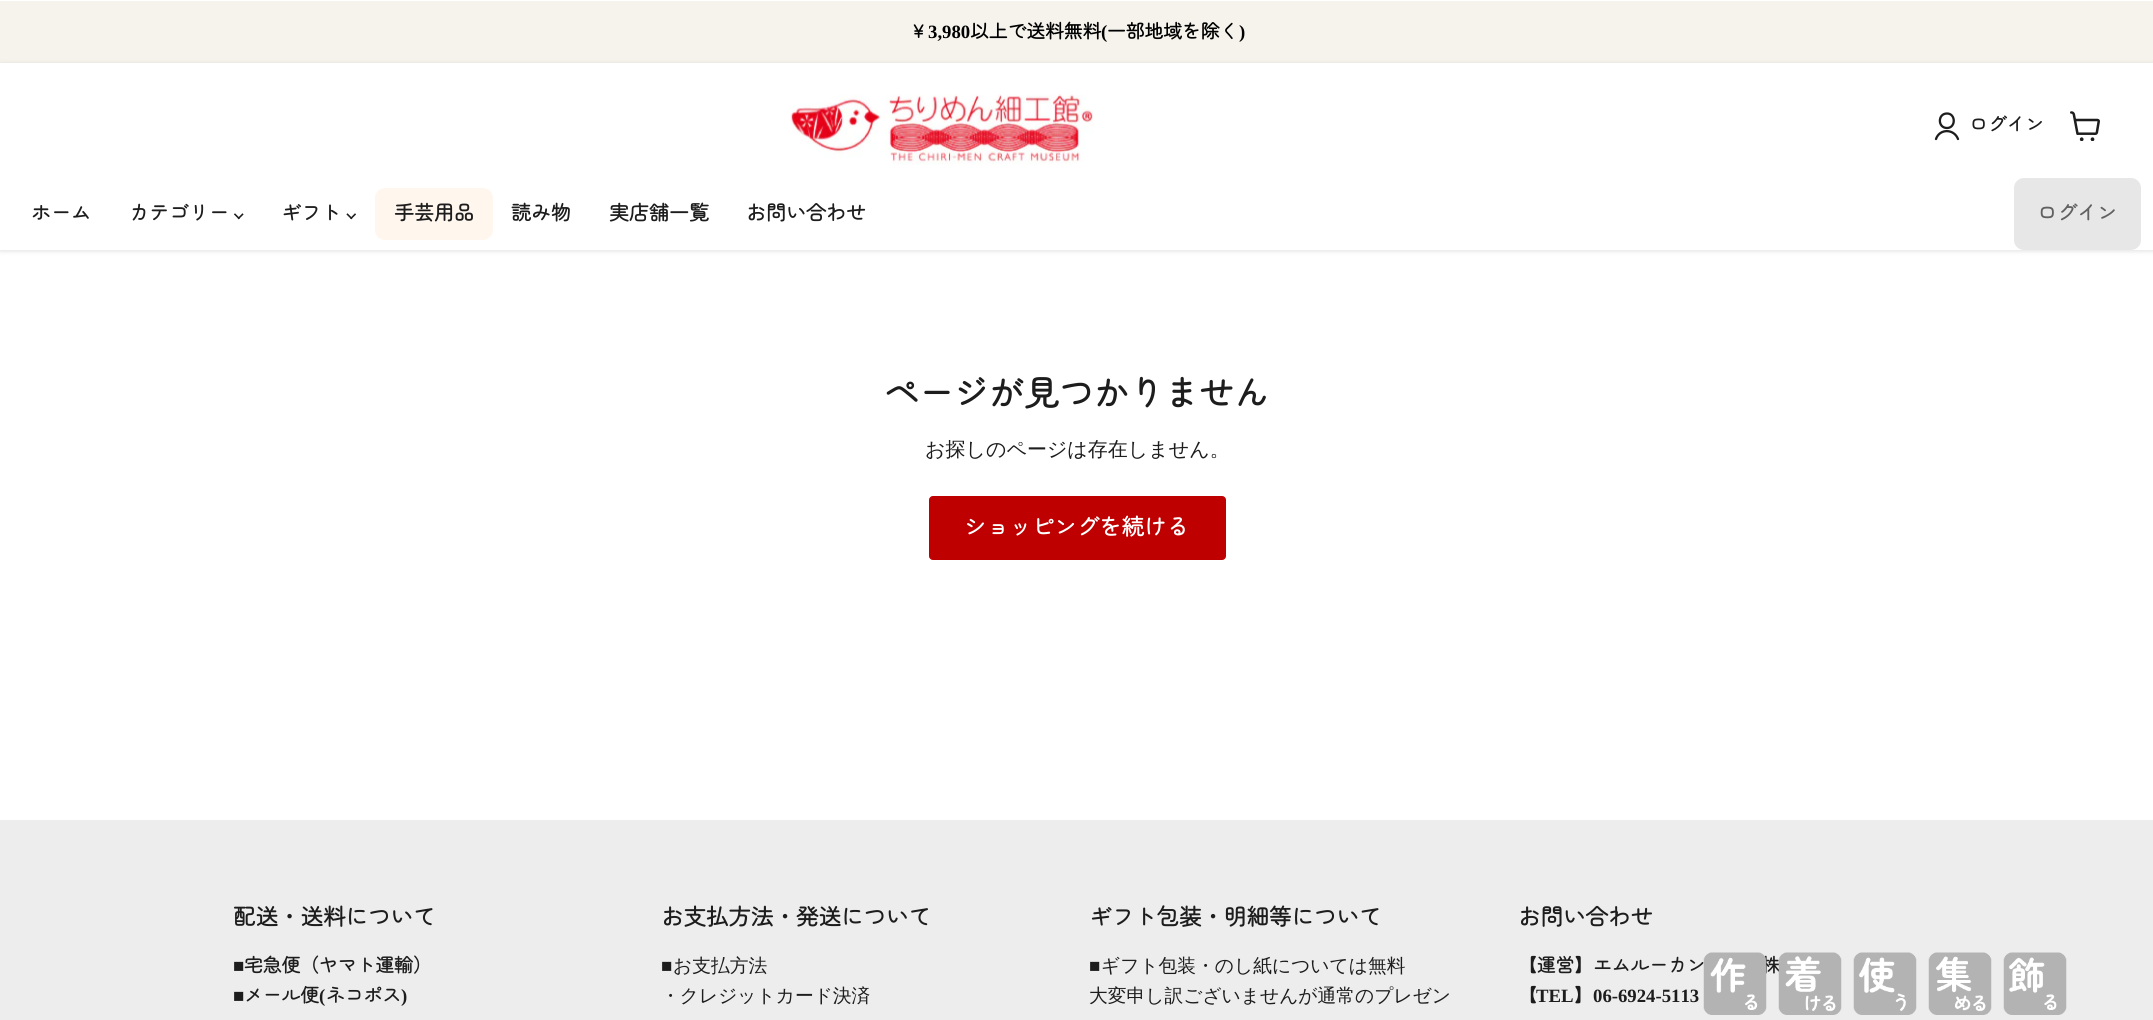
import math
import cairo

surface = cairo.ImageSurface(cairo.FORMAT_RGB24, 2153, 1020)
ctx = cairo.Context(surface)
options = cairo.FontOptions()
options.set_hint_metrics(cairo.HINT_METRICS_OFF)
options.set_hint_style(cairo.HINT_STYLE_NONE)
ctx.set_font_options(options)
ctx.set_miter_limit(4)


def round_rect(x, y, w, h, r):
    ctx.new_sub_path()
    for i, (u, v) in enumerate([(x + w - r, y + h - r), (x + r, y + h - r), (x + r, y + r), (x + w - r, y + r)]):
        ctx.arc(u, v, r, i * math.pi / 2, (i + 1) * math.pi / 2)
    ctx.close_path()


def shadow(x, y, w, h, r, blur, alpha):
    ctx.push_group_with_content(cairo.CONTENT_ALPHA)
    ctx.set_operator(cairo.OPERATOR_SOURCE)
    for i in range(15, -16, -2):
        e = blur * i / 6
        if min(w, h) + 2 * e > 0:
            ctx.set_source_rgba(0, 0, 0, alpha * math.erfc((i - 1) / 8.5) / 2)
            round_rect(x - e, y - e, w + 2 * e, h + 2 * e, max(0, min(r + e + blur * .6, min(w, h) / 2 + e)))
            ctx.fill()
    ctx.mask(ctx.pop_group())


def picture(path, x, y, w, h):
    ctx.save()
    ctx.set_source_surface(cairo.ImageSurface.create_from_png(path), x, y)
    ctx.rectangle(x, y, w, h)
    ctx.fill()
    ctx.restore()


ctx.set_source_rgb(1, 1, 1)
ctx.paint()
ctx.set_source_rgb(0.961, 0.953, 0.929)
ctx.rectangle(0, 1, 2153, 62)
ctx.fill()
ctx.select_font_face("Zen Maru Gothic", cairo.FONT_SLANT_NORMAL, cairo.FONT_WEIGHT_BOLD)
ctx.set_font_size(18.75)
ctx.set_source_rgb(0, 0, 0)
ctx.move_to(909, 38)
ctx.show_text("￥")
ctx.select_font_face("Liberation Serif", cairo.FONT_SLANT_NORMAL, cairo.FONT_WEIGHT_BOLD)
ctx.move_to(928, 38)
ctx.show_text("3,980")
ctx.select_font_face("Zen Maru Gothic", cairo.FONT_SLANT_NORMAL, cairo.FONT_WEIGHT_BOLD)
ctx.move_to(970, 38)
ctx.show_text("以上で送料無料")
ctx.select_font_face("Liberation Serif", cairo.FONT_SLANT_NORMAL, cairo.FONT_WEIGHT_BOLD)
ctx.move_to(1101, 38)
ctx.show_text("(")
ctx.select_font_face("Zen Maru Gothic", cairo.FONT_SLANT_NORMAL, cairo.FONT_WEIGHT_BOLD)
ctx.move_to(1107, 38)
ctx.show_text("一部地域を除く")
ctx.select_font_face("Liberation Serif", cairo.FONT_SLANT_NORMAL, cairo.FONT_WEIGHT_BOLD)
ctx.move_to(1239, 38)
ctx.show_text(")")
ctx.set_source_rgb(0.502, 0.502, 0.502)
shadow(0, 64, 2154, 187, 0, 2.5, 0.25)
ctx.set_source_rgb(1, 1, 1)
ctx.rectangle(0, 63, 2153, 187)
ctx.fill()
picture("img1.png", 790, 94, 304, 71)
ctx.new_path()
ctx.move_to(1947, 128)
ctx.curve_to(1956, 128, 1956, 113.5, 1947, 113.5)
ctx.curve_to(1937.5, 113.5, 1937.5, 128, 1947, 128)
ctx.close_path()
ctx.move_to(1958, 139)
ctx.curve_to(1954, 128.5, 1939.5, 128.5, 1936, 139)
ctx.set_source_rgb(0.114, 0.114, 0.114)
ctx.set_line_width(2.3)
ctx.set_line_cap(cairo.LINE_CAP_ROUND)
ctx.set_line_join(cairo.LINE_JOIN_ROUND)
ctx.stroke()
ctx.select_font_face("Zen Maru Gothic", cairo.FONT_SLANT_NORMAL, cairo.FONT_WEIGHT_BOLD)
ctx.move_to(1969, 131)
ctx.show_text("ログイン")
picture("img2.png", 2070, 111, 30, 30)
ctx.set_font_size(20)
ctx.move_to(31, 220)
ctx.show_text("ホーム")
ctx.move_to(129, 220)
ctx.show_text("カテゴリー")
picture("img3.png", 234, 213, 10, 7)
ctx.move_to(281, 220)
ctx.show_text("ギフト")
picture("img4.png", 346, 213, 10, 7)
ctx.set_source_rgb(1, 0.961, 0.933)
round_rect(375, 188, 118, 52, 10)
ctx.fill()
ctx.set_source_rgb(0.114, 0.114, 0.114)
ctx.move_to(394, 220)
ctx.show_text("手芸用品")
ctx.move_to(511, 220)
ctx.show_text("読み物")
ctx.move_to(609, 220)
ctx.show_text("実店舗一覧")
ctx.move_to(746, 220)
ctx.show_text("お問い合わせ")
ctx.set_source_rgb(0.906, 0.906, 0.906)
round_rect(2014, 178, 127, 72, 10)
ctx.fill()
ctx.set_source_rgb(0.38, 0.38, 0.38)
ctx.move_to(2037, 220)
ctx.show_text("ログイン")
ctx.set_font_size(35)
ctx.set_source_rgb(0.114, 0.114, 0.114)
ctx.move_to(884, 406)
ctx.show_text("ページが見つかりません")
ctx.select_font_face("WenQuanYi Zen Hei Medium")
ctx.set_font_size(20)
ctx.move_to(925, 456)
ctx.show_text("お探しのページは存在しません。")
ctx.set_source_rgb(0.749, 0, 0)
round_rect(929.5, 496.5, 296, 63, 3.5)
ctx.fill_preserve()
ctx.set_line_width(1)
ctx.set_line_cap(cairo.LINE_CAP_BUTT)
ctx.set_line_join(cairo.LINE_JOIN_MITER)
ctx.stroke()
ctx.select_font_face("Zen Maru Gothic", cairo.FONT_SLANT_NORMAL, cairo.FONT_WEIGHT_BOLD)
ctx.set_font_size(22.5)
ctx.set_source_rgb(1, 1, 1)
ctx.move_to(964, 535)
ctx.show_text("ショッピングを続ける")
ctx.set_source_rgb(0.929, 0.929, 0.929)
ctx.rectangle(0, 820, 2153, 200)
ctx.fill()
ctx.set_source_rgb(0.114, 0.114, 0.114)
ctx.move_to(233, 925)
ctx.show_text("配送・送料について")
ctx.select_font_face("Liberation Serif", cairo.FONT_SLANT_NORMAL, cairo.FONT_WEIGHT_BOLD)
ctx.set_font_size(18.75)
ctx.move_to(233, 972)
ctx.show_text("■")
ctx.select_font_face("Zen Maru Gothic", cairo.FONT_SLANT_NORMAL, cairo.FONT_WEIGHT_BOLD)
ctx.move_to(244, 972)
ctx.show_text("宅急便（ヤマト運輸）")
ctx.select_font_face("Liberation Serif", cairo.FONT_SLANT_NORMAL, cairo.FONT_WEIGHT_BOLD)
ctx.move_to(233, 1002)
ctx.show_text("■")
ctx.select_font_face("Zen Maru Gothic", cairo.FONT_SLANT_NORMAL, cairo.FONT_WEIGHT_BOLD)
ctx.move_to(244, 1002)
ctx.show_text("メール便")
ctx.select_font_face("Liberation Serif", cairo.FONT_SLANT_NORMAL, cairo.FONT_WEIGHT_BOLD)
ctx.move_to(319, 1002)
ctx.show_text("(")
ctx.select_font_face("Zen Maru Gothic", cairo.FONT_SLANT_NORMAL, cairo.FONT_WEIGHT_BOLD)
ctx.move_to(326, 1002)
ctx.show_text("ネコポス")
ctx.select_font_face("Liberation Serif", cairo.FONT_SLANT_NORMAL, cairo.FONT_WEIGHT_BOLD)
ctx.move_to(401, 1002)
ctx.show_text(")")
ctx.select_font_face("Zen Maru Gothic", cairo.FONT_SLANT_NORMAL, cairo.FONT_WEIGHT_BOLD)
ctx.set_font_size(22.5)
ctx.move_to(661, 925)
ctx.show_text("お支払方法・発送について")
ctx.select_font_face("Liberation Serif")
ctx.set_font_size(18.75)
ctx.move_to(661, 972)
ctx.show_text("■")
ctx.select_font_face("WenQuanYi Zen Hei Medium")
ctx.move_to(673, 972)
ctx.show_text("お支払方法")
ctx.move_to(661, 1002)
ctx.show_text("・クレジットカード決済")
ctx.select_font_face("Zen Maru Gothic", cairo.FONT_SLANT_NORMAL, cairo.FONT_WEIGHT_BOLD)
ctx.set_font_size(22.5)
ctx.move_to(1089, 925)
ctx.show_text("ギフト包装・明細等について")
ctx.select_font_face("Liberation Serif")
ctx.set_font_size(18.75)
ctx.move_to(1089, 972)
ctx.show_text("■")
ctx.select_font_face("WenQuanYi Zen Hei Medium")
ctx.move_to(1101, 972)
ctx.show_text("ギフト包装・のし紙については無料")
ctx.move_to(1089, 1002)
ctx.show_text("大変申し訳ございませんが通常のプレゼン")
ctx.select_font_face("Zen Maru Gothic", cairo.FONT_SLANT_NORMAL, cairo.FONT_WEIGHT_BOLD)
ctx.set_font_size(22.5)
ctx.move_to(1518, 925)
ctx.show_text("お問い合わせ")
ctx.set_font_size(18.75)
ctx.move_to(1518, 972)
ctx.show_text("【運営】エムルーカン")
ctx.move_to(1761, 972)
ctx.show_text("株")
ctx.move_to(1518, 1002)
ctx.show_text("【")
ctx.select_font_face("Liberation Serif", cairo.FONT_SLANT_NORMAL, cairo.FONT_WEIGHT_BOLD)
ctx.move_to(1536, 1002)
ctx.show_text("TEL")
ctx.select_font_face("Zen Maru Gothic", cairo.FONT_SLANT_NORMAL, cairo.FONT_WEIGHT_BOLD)
ctx.move_to(1574, 1002)
ctx.show_text("】")
ctx.select_font_face("Liberation Serif", cairo.FONT_SLANT_NORMAL, cairo.FONT_WEIGHT_BOLD)
ctx.move_to(1593, 1002)
ctx.show_text("06-6924-5113")
picture("img5.png", 1703, 952, 64, 63)
picture("img6.png", 1778, 952, 64, 63)
picture("img7.png", 1853, 952, 64, 63)
picture("img8.png", 1928, 952, 64, 63)
picture("img9.png", 2003, 952, 64, 63)
surface.write_to_png("page.png")
